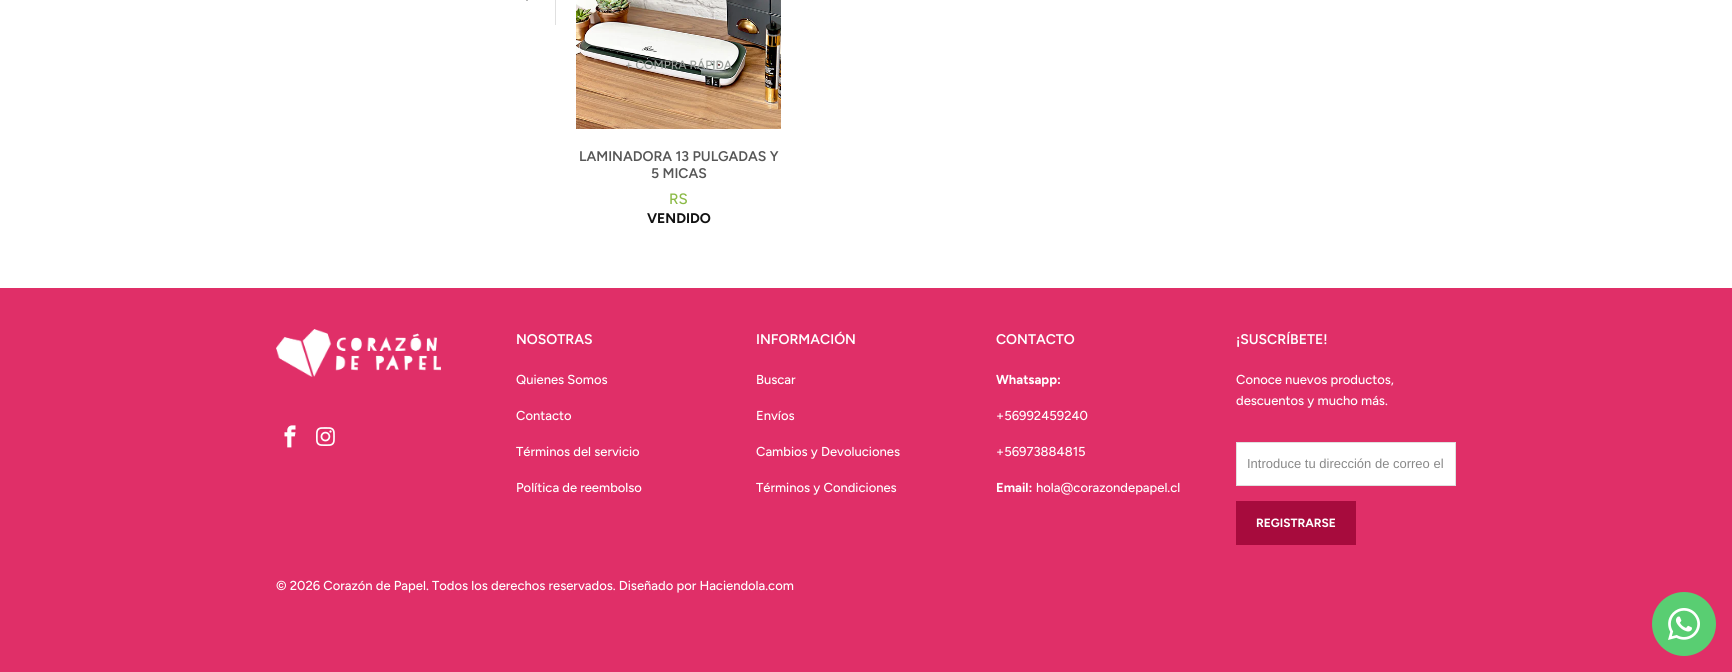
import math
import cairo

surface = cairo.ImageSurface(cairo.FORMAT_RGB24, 1732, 672)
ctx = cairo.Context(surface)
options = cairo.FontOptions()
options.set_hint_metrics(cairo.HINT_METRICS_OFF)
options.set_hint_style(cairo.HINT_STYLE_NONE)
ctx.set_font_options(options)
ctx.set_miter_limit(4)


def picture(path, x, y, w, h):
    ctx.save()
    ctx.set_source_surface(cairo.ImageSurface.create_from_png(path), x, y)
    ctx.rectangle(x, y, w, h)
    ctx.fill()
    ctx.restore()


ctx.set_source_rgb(1, 1, 1)
ctx.paint()
ctx.set_source_rgb(0.878, 0.878, 0.878)
ctx.rectangle(555, 0, 1, 25)
ctx.fill()
ctx.set_source_rgb(0.714, 0.714, 0.714)
ctx.rectangle(526, 0, 2, 1)
ctx.fill()
picture("img1.png", 576, 0, 205, 129)
ctx.select_font_face("Figtree Medium")
ctx.set_font_size(12)
ctx.set_source_rgb(0.596, 0.612, 0.596)
ctx.move_to(625, 69)
ctx.show_text("+ COMPRA RÁPIDA")
ctx.select_font_face("Figtree SemiBold")
ctx.set_font_size(14)
ctx.set_source_rgb(0.337, 0.337, 0.337)
ctx.move_to(579, 161)
ctx.show_text("LAMINADORA 13 PULGADAS Y")
ctx.move_to(651, 178)
ctx.show_text("5 MICAS")
ctx.select_font_face("Figtree Medium")
ctx.set_font_size(15)
ctx.set_source_rgb(0.545, 0.729, 0.275)
ctx.move_to(669, 204)
ctx.show_text("RS")
ctx.select_font_face("Figtree", cairo.FONT_SLANT_NORMAL, cairo.FONT_WEIGHT_BOLD)
ctx.set_font_size(14)
ctx.set_source_rgb(0.071, 0.071, 0.071)
ctx.move_to(647, 223)
ctx.show_text("VENDIDO")
ctx.set_source_rgb(0.878, 0.184, 0.408)
ctx.rectangle(0, 288, 1732, 384)
ctx.fill()
picture("img2.png", 276, 329, 165, 48)
picture("img3.png", 284, 425, 12, 23)
picture("img4.png", 316, 427, 19, 19)
ctx.select_font_face("Figtree SemiBold")
ctx.set_source_rgb(1, 1, 1)
ctx.move_to(516, 344)
ctx.show_text("NOSOTRAS")
ctx.select_font_face("Figtree Medium")
ctx.set_font_size(13)
ctx.move_to(516, 384)
ctx.show_text("Quienes Somos")
ctx.move_to(516, 420)
ctx.show_text("Contacto")
ctx.move_to(516, 456)
ctx.show_text("Términos del servicio")
ctx.move_to(516, 492)
ctx.show_text("Política de reembolso")
ctx.select_font_face("Figtree SemiBold")
ctx.set_font_size(14)
ctx.move_to(756, 344)
ctx.show_text("INFORMACIÓN")
ctx.select_font_face("Figtree Medium")
ctx.set_font_size(13)
ctx.move_to(756, 384)
ctx.show_text("Buscar")
ctx.move_to(756, 420)
ctx.show_text("Envíos")
ctx.move_to(756, 456)
ctx.show_text("Cambios y Devoluciones")
ctx.move_to(756, 492)
ctx.show_text("Términos y Condiciones")
ctx.select_font_face("Figtree SemiBold")
ctx.set_font_size(14)
ctx.move_to(996, 344)
ctx.show_text("CONTACTO")
ctx.select_font_face("Figtree", cairo.FONT_SLANT_NORMAL, cairo.FONT_WEIGHT_BOLD)
ctx.set_font_size(13)
ctx.move_to(996, 384)
ctx.show_text("Whatsapp:")
ctx.select_font_face("Figtree Medium")
ctx.move_to(996, 420)
ctx.show_text("+56992459240")
ctx.move_to(996, 456)
ctx.show_text("+56973884815")
ctx.select_font_face("Figtree", cairo.FONT_SLANT_NORMAL, cairo.FONT_WEIGHT_BOLD)
ctx.move_to(996, 492)
ctx.show_text("Email:")
ctx.select_font_face("Figtree Medium")
ctx.move_to(1036, 492)
ctx.show_text("hola@corazondepapel.cl")
ctx.select_font_face("Figtree SemiBold")
ctx.set_font_size(14)
ctx.move_to(1236, 344)
ctx.show_text("¡SUSCRÍBETE!")
ctx.select_font_face("Figtree Medium")
ctx.set_font_size(13)
ctx.move_to(1236, 384)
ctx.show_text("Conoce nuevos productos,")
ctx.move_to(1236, 405)
ctx.show_text("descuentos y mucho más.")
ctx.rectangle(1236.5, 442.5, 219, 43)
ctx.fill_preserve()
ctx.set_source_rgb(0.878, 0.878, 0.878)
ctx.set_line_width(1)
ctx.stroke()
ctx.select_font_face("Liberation Sans")
ctx.set_source_rgb(0.533, 0.533, 0.533)
ctx.move_to(1247, 468)
ctx.show_text("Introduce tu dirección de correo el")
ctx.set_source_rgb(0.655, 0.043, 0.239)
ctx.rectangle(1236, 501, 120, 44)
ctx.fill()
ctx.select_font_face("Figtree", cairo.FONT_SLANT_NORMAL, cairo.FONT_WEIGHT_BOLD)
ctx.set_font_size(12)
ctx.set_source_rgb(1, 1, 1)
ctx.move_to(1256, 527)
ctx.show_text("REGISTRARSE")
ctx.select_font_face("Figtree Medium")
ctx.set_font_size(13)
ctx.move_to(276, 590)
ctx.show_text("© 2026 Corazón de Papel")
ctx.move_to(426, 590)
ctx.show_text(". Todos los derechos reservados. Diseñado por Haciendola.com")
ctx.set_source_rgb(0.349, 0.808, 0.447)
ctx.new_path()
ctx.arc(1684, 624, 32, 0, 2 * math.pi)
ctx.fill()
picture("img5.png", 1668, 608, 32, 32)
surface.write_to_png("page.png")
